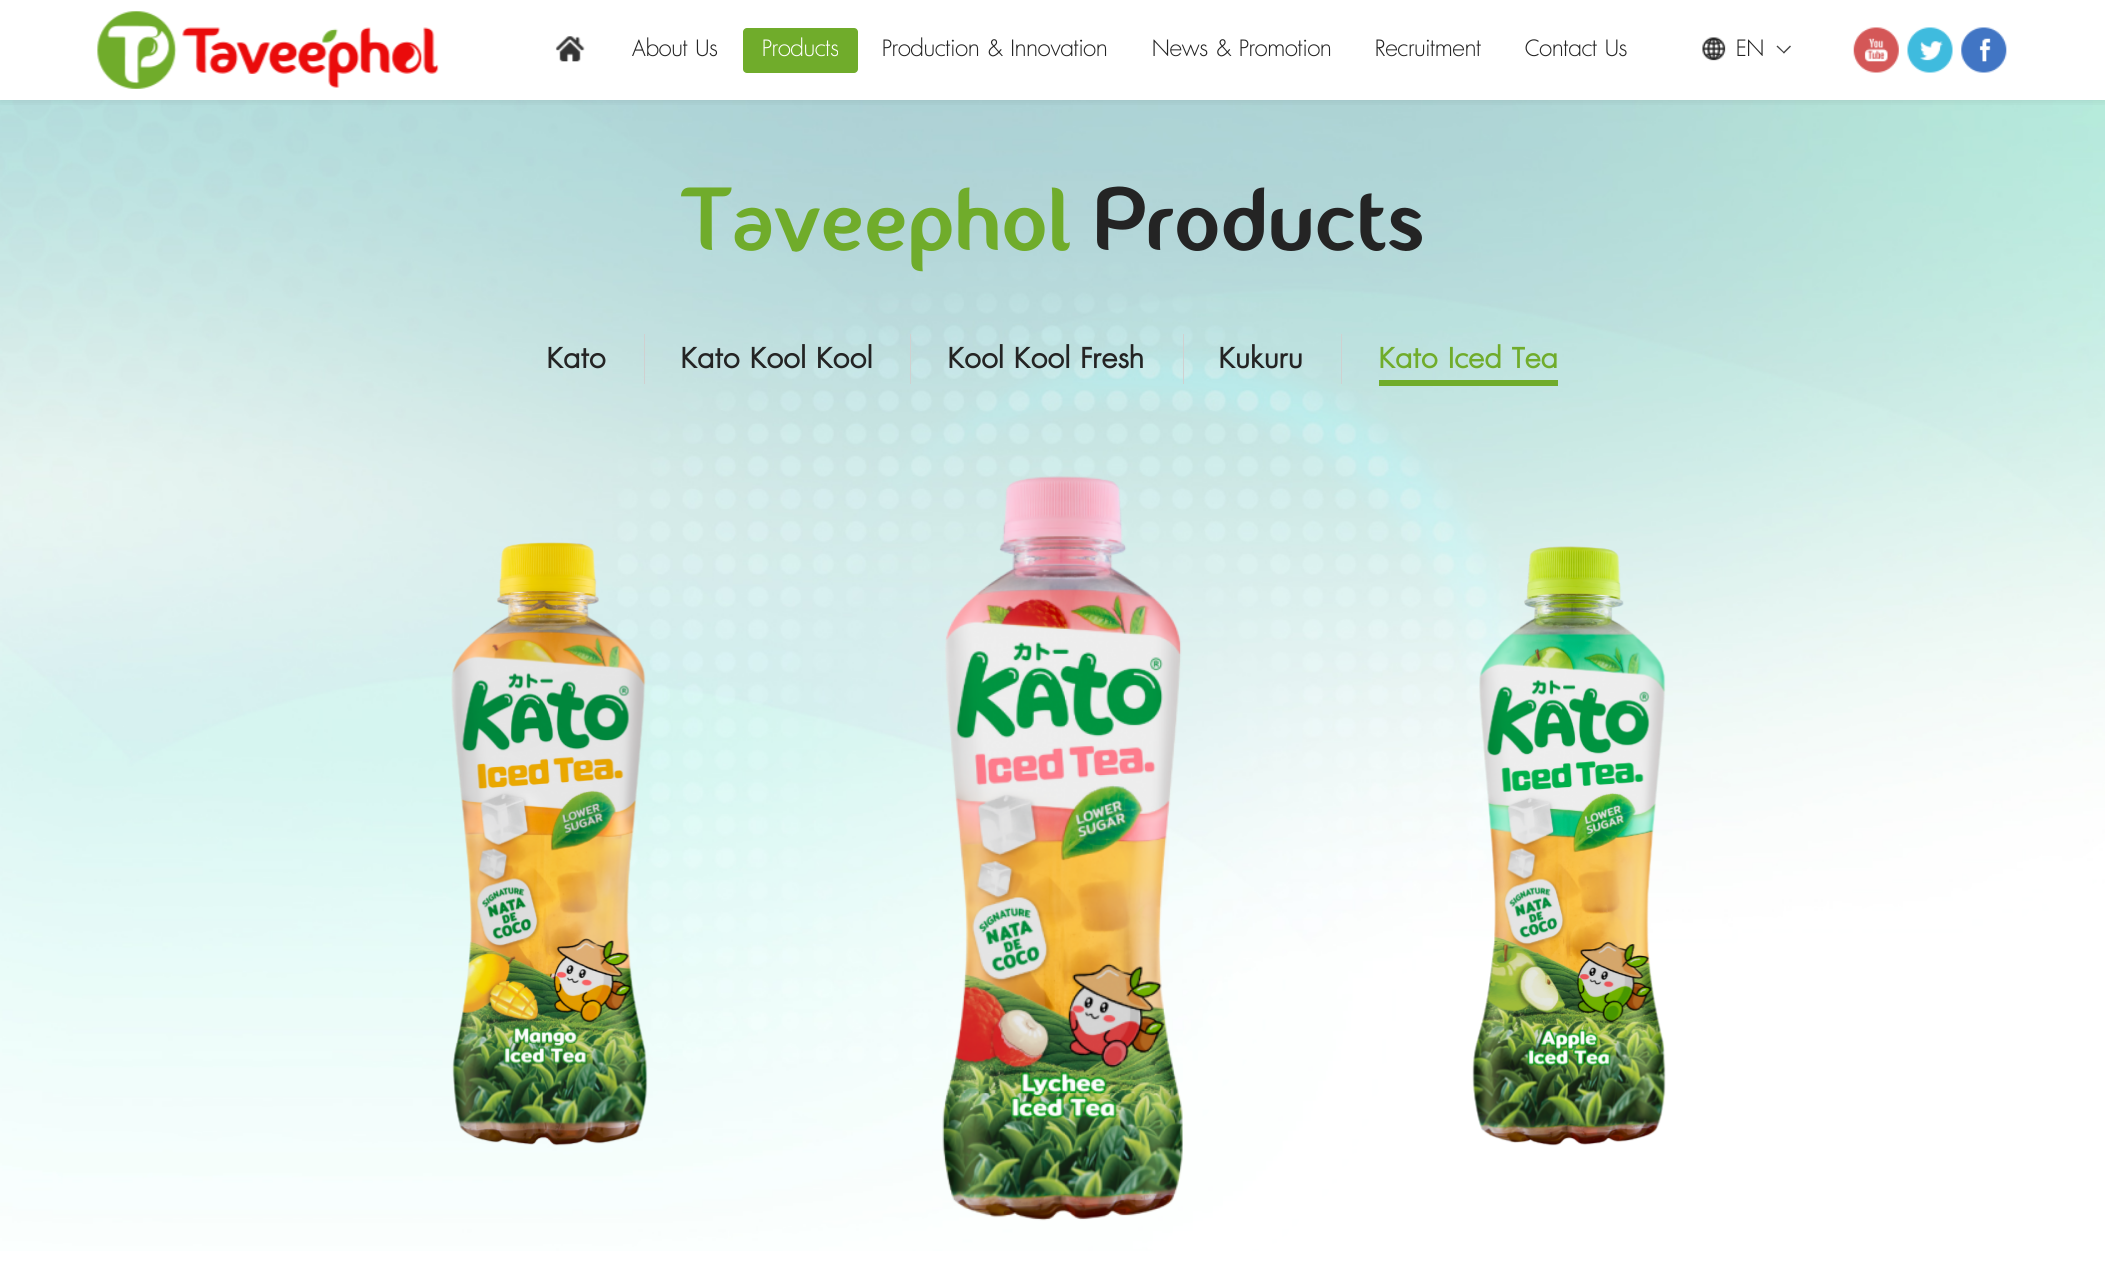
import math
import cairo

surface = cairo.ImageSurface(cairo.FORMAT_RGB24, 2105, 1269)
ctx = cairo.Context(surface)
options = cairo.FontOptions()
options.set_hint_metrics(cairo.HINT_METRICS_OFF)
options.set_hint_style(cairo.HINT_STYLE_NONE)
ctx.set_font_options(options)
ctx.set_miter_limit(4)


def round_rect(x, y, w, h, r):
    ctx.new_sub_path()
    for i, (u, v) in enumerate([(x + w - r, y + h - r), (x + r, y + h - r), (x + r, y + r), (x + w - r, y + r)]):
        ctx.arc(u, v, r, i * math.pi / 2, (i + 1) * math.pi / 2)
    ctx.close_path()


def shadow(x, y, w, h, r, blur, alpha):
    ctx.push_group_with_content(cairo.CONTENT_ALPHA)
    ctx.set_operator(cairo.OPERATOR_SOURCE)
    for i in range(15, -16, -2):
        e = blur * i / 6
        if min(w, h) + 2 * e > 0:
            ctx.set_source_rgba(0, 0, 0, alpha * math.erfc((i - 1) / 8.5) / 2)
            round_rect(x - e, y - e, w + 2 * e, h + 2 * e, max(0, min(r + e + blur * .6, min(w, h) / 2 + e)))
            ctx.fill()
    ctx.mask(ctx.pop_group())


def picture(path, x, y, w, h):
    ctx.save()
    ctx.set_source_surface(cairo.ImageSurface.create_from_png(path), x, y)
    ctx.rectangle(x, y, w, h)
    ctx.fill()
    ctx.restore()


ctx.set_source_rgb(1, 1, 1)
ctx.paint()
picture("img7.png", 0, 100, 2105, 1151)
ctx.save()
ctx.rectangle(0, 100, 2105, 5)
ctx.clip()
ctx.set_source_rgb(0, 0, 0)
shadow(0, 0, 2105, 100, 0, 6, 0.1)
ctx.restore()
picture("img1.png", 97, 11, 342, 78)
picture("img2.png", 555, 36, 30, 26)
ctx.select_font_face("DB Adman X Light")
ctx.set_font_size(31.25)
ctx.set_source_rgb(0.141, 0.141, 0.141)
ctx.move_to(632, 56)
ctx.show_text("About Us")
ctx.set_source_rgb(0.439, 0.675, 0.169)
round_rect(743, 28, 115, 45, 4)
ctx.fill()
ctx.set_source_rgb(1, 1, 1)
ctx.move_to(762, 56)
ctx.show_text("Products")
ctx.set_source_rgb(0.141, 0.141, 0.141)
ctx.move_to(882, 56)
ctx.show_text("Production & Innovation")
ctx.move_to(1152, 56)
ctx.show_text("News & Promotion")
ctx.move_to(1375, 56)
ctx.show_text("Recruitment")
ctx.move_to(1525, 56)
ctx.show_text("Contact Us")
picture("img3.png", 1702, 37, 24, 24)
ctx.move_to(1736, 56)
ctx.show_text("EN")
ctx.set_source_rgb(0.267, 0.267, 0.267)
ctx.new_path()
ctx.move_to(1790, 45.5)
ctx.line_to(1791, 46.5)
ctx.line_to(1784, 53.5)
ctx.line_to(1783, 52.5)
ctx.close_path()
ctx.fill()
ctx.new_path()
ctx.move_to(1777.5, 45.5)
ctx.line_to(1784.5, 52.5)
ctx.line_to(1784, 53.5)
ctx.line_to(1776.5, 46.5)
ctx.close_path()
ctx.fill()
picture("img4.png", 1853, 27, 46, 46)
picture("img5.png", 1907, 27, 46, 46)
picture("img6.png", 1961, 27, 46, 46)
ctx.select_font_face("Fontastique")
ctx.set_font_size(90)
ctx.set_source_rgb(0.439, 0.675, 0.169)
ctx.move_to(681, 250)
ctx.show_text("Taveephol")
ctx.set_source_rgb(0.141, 0.141, 0.141)
ctx.move_to(1093, 250)
ctx.show_text("Products")
ctx.select_font_face("DB Adman X")
ctx.set_font_size(40)
ctx.move_to(547, 368)
ctx.show_text("Kato")
ctx.set_source_rgb(0.816, 0.816, 0.816)
ctx.rectangle(644, 334, 1, 50)
ctx.fill()
ctx.set_source_rgb(0.141, 0.141, 0.141)
ctx.move_to(681, 368)
ctx.show_text("Kato Kool Kool")
ctx.set_source_rgb(0.816, 0.816, 0.816)
ctx.rectangle(910, 334, 1, 50)
ctx.fill()
ctx.set_source_rgb(0.141, 0.141, 0.141)
ctx.move_to(948, 368)
ctx.show_text("Kool Kool Fresh")
ctx.set_source_rgb(0.816, 0.816, 0.816)
ctx.rectangle(1183, 334, 1, 50)
ctx.fill()
ctx.set_source_rgb(0.141, 0.141, 0.141)
ctx.move_to(1219, 368)
ctx.show_text("Kukuru")
ctx.set_source_rgb(0.816, 0.816, 0.816)
ctx.rectangle(1341, 334, 1, 50)
ctx.fill()
ctx.set_source_rgb(0.439, 0.675, 0.169)
ctx.move_to(1379, 368)
ctx.show_text("Kato Iced Tea")
ctx.rectangle(1379, 380, 179, 6)
ctx.fill()
picture("img8.png", 451, 542, 197, 604)
picture("img9.png", 942, 476, 241, 745)
picture("img10.png", 1472, 546, 194, 600)
surface.write_to_png("page.png")
